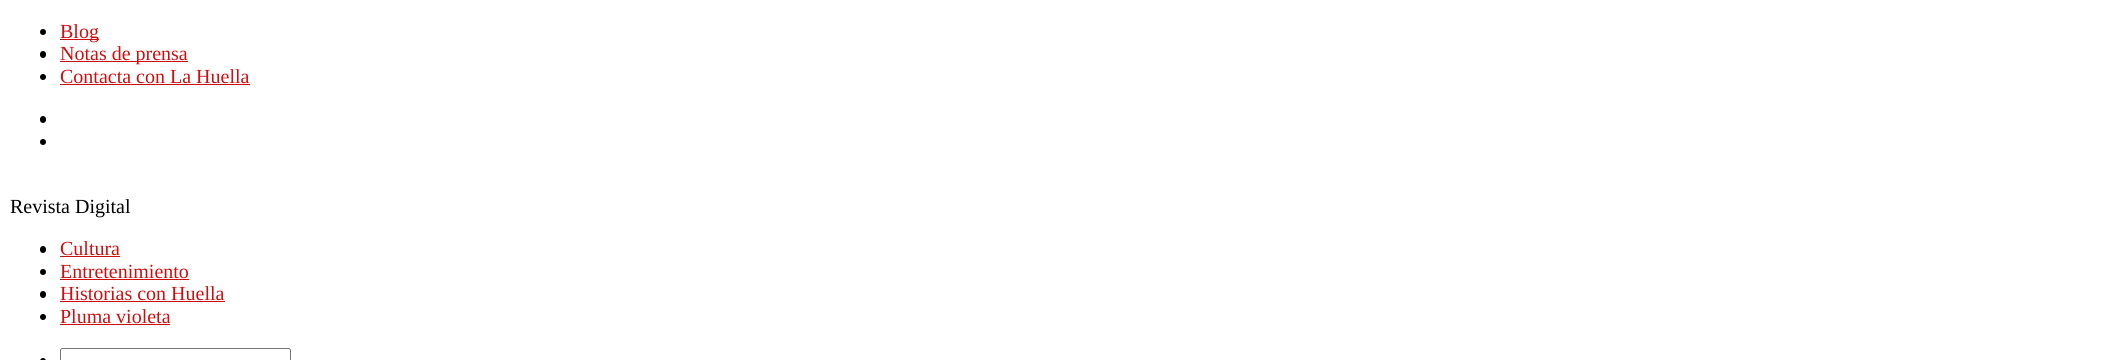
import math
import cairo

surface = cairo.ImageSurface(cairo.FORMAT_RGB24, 2106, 360)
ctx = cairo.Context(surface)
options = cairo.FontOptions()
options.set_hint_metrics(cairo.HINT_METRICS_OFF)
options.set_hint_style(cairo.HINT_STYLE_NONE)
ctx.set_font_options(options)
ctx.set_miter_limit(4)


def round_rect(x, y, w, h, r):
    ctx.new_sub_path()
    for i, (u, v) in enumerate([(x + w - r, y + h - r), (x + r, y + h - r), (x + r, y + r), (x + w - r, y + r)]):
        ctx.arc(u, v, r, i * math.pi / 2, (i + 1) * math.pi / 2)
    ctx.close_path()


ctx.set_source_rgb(1, 1, 1)
ctx.paint()
ctx.set_source_rgb(0, 0, 0)
ctx.arc(43, 32, 3, 0, 2 * math.pi)
ctx.fill()
ctx.set_source_rgb(0.796, 0.063, 0.071)
ctx.rectangle(60, 39, 39, 1)
ctx.fill()
ctx.select_font_face("Liberation Serif")
ctx.set_font_size(20)
ctx.move_to(60, 38)
ctx.show_text("Blog")
ctx.set_source_rgb(0, 0, 0)
round_rect(40, 51, 6, 7, 3)
ctx.fill()
ctx.set_source_rgb(0.796, 0.063, 0.071)
ctx.rectangle(60, 61, 128, 1)
ctx.fill()
ctx.move_to(60, 60)
ctx.show_text("Notas de prensa")
ctx.set_source_rgb(0, 0, 0)
ctx.new_path()
ctx.arc(43, 77, 3, 0, 2 * math.pi)
ctx.fill()
ctx.set_source_rgb(0.796, 0.063, 0.071)
ctx.move_to(60, 83)
ctx.show_text("Contacta con La Huella")
ctx.rectangle(60, 84, 190, 1)
ctx.fill()
ctx.set_source_rgb(0, 0, 0)
round_rect(40, 116, 6, 7, 3)
ctx.fill()
ctx.arc(43, 142, 3, 0, 2 * math.pi)
ctx.fill()
ctx.move_to(10, 213)
ctx.show_text("Revista Digital")
round_rect(40, 246, 6, 7, 3)
ctx.fill()
ctx.set_source_rgb(0.796, 0.063, 0.071)
ctx.move_to(60, 255)
ctx.show_text("Cultura")
ctx.rectangle(60, 256, 60, 1)
ctx.fill()
ctx.set_source_rgb(0, 0, 0)
ctx.arc(43, 272, 3, 0, 2 * math.pi)
ctx.fill()
ctx.set_source_rgb(0.796, 0.063, 0.071)
ctx.move_to(60, 278)
ctx.show_text("Entretenimiento")
ctx.rectangle(60, 279, 129, 1)
ctx.fill()
ctx.set_source_rgb(0, 0, 0)
round_rect(40, 291, 6, 7, 3)
ctx.fill()
ctx.set_source_rgb(0.796, 0.063, 0.071)
ctx.move_to(60, 300)
ctx.show_text("Historias con Huella")
ctx.rectangle(60, 301, 165, 1)
ctx.fill()
ctx.set_source_rgb(0, 0, 0)
ctx.arc(43, 317, 3, 0, 2 * math.pi)
ctx.fill()
ctx.set_source_rgb(0.796, 0.063, 0.071)
ctx.move_to(60, 323)
ctx.show_text("Pluma violeta")
ctx.rectangle(60, 324, 110, 1)
ctx.fill()
ctx.set_source_rgb(0, 0, 0)
round_rect(40, 358, 6, 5, 3)
ctx.fill()
round_rect(60.5, 348.5, 230, 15, 2)
ctx.set_source_rgb(0.463, 0.463, 0.463)
ctx.set_line_width(1)
ctx.stroke()
surface.write_to_png("page.png")
